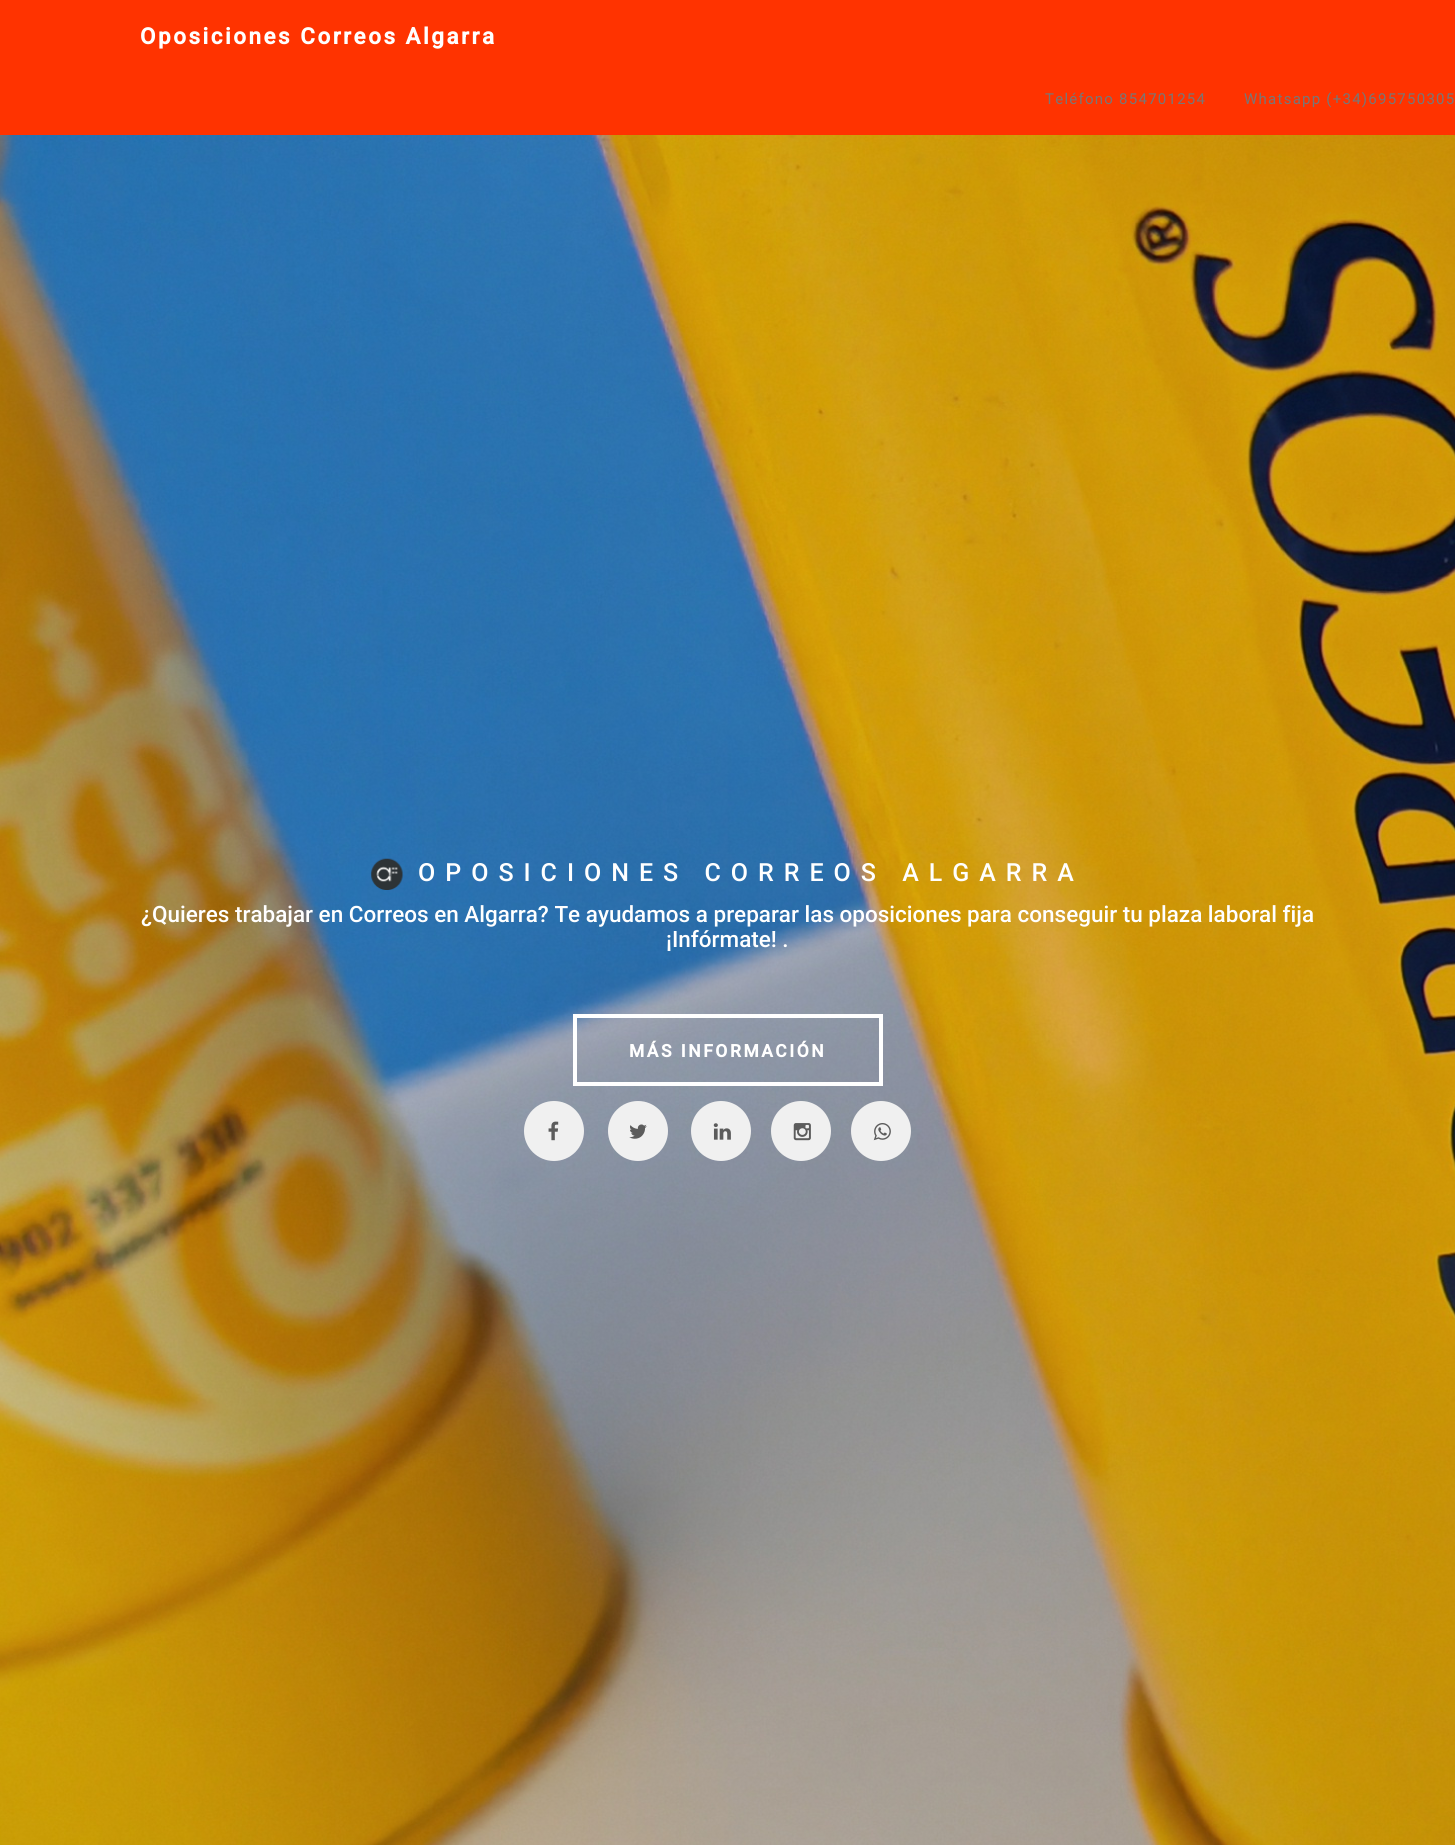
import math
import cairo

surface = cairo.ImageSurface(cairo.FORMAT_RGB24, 1455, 1845)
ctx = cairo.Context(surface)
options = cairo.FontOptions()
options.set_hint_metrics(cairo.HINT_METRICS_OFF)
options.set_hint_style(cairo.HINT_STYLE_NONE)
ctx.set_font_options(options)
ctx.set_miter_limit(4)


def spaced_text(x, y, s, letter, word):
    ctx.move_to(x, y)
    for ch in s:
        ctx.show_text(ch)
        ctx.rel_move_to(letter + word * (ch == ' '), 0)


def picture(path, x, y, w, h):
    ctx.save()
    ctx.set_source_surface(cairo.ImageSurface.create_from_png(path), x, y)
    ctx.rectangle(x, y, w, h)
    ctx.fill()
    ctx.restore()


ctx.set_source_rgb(1, 1, 1)
ctx.paint()
ctx.set_source_rgb(1, 0.2, 0)
ctx.rectangle(0, 0, 1455, 135)
ctx.fill()
ctx.select_font_face("Roboto", cairo.FONT_SLANT_NORMAL, cairo.FONT_WEIGHT_BOLD)
ctx.set_font_size(22.5)
ctx.set_source_rgb(1, 1, 1)
spaced_text(140, 44, "Oposiciones Correos Algarra", 2.5, 0)
ctx.select_font_face("Roboto")
ctx.set_font_size(15)
ctx.set_source_rgb(0.467, 0.467, 0.467)
spaced_text(1045, 104, "Teléfono 854701254", 1.25, 0)
spaced_text(1244, 104, "Whatsapp (+34)695750305", 1.25, 0)
picture("img1.png", 0, 135, 1455, 1710)
picture("img2.png", 371, 858, 32, 32)
ctx.select_font_face("Roboto Medium")
ctx.set_font_size(25)
ctx.set_source_rgb(1, 1, 1)
spaced_text(418, 881, "OPOSICIONES CORREOS ALGARRA", 10, 0)
ctx.set_font_size(22.5)
ctx.move_to(141, 922)
ctx.show_text("¿Quieres trabajar en Correos en Algarra? Te ayudamos a preparar las oposiciones para conseguir tu plaza laboral fija")
ctx.move_to(666, 947)
ctx.show_text("¡Infórmate! .")
ctx.rectangle(575, 1016, 306, 68)
ctx.set_line_width(4)
ctx.stroke()
ctx.select_font_face("Roboto", cairo.FONT_SLANT_NORMAL, cairo.FONT_WEIGHT_BOLD)
ctx.set_font_size(17.5)
spaced_text(629, 1057, "MÁS INFORMACIÓN", 2.5, 0)
ctx.set_source_rgb(0.941, 0.941, 0.941)
ctx.new_path()
ctx.arc(554, 1131, 30, 0, 2 * math.pi)
ctx.fill()
picture("img3.png", 548, 1121, 11, 20)
ctx.arc(638, 1131, 30, 0, 2 * math.pi)
ctx.fill()
picture("img4.png", 629, 1124, 18, 15)
ctx.arc(721, 1131, 30, 0, 2 * math.pi)
ctx.fill()
picture("img5.png", 713, 1123, 18, 17)
ctx.arc(801, 1131, 30, 0, 2 * math.pi)
ctx.fill()
picture("img6.png", 793, 1123, 18, 18)
ctx.arc(881, 1131, 30, 0, 2 * math.pi)
ctx.fill()
picture("img7.png", 873, 1123, 18, 18)
surface.write_to_png("page.png")
